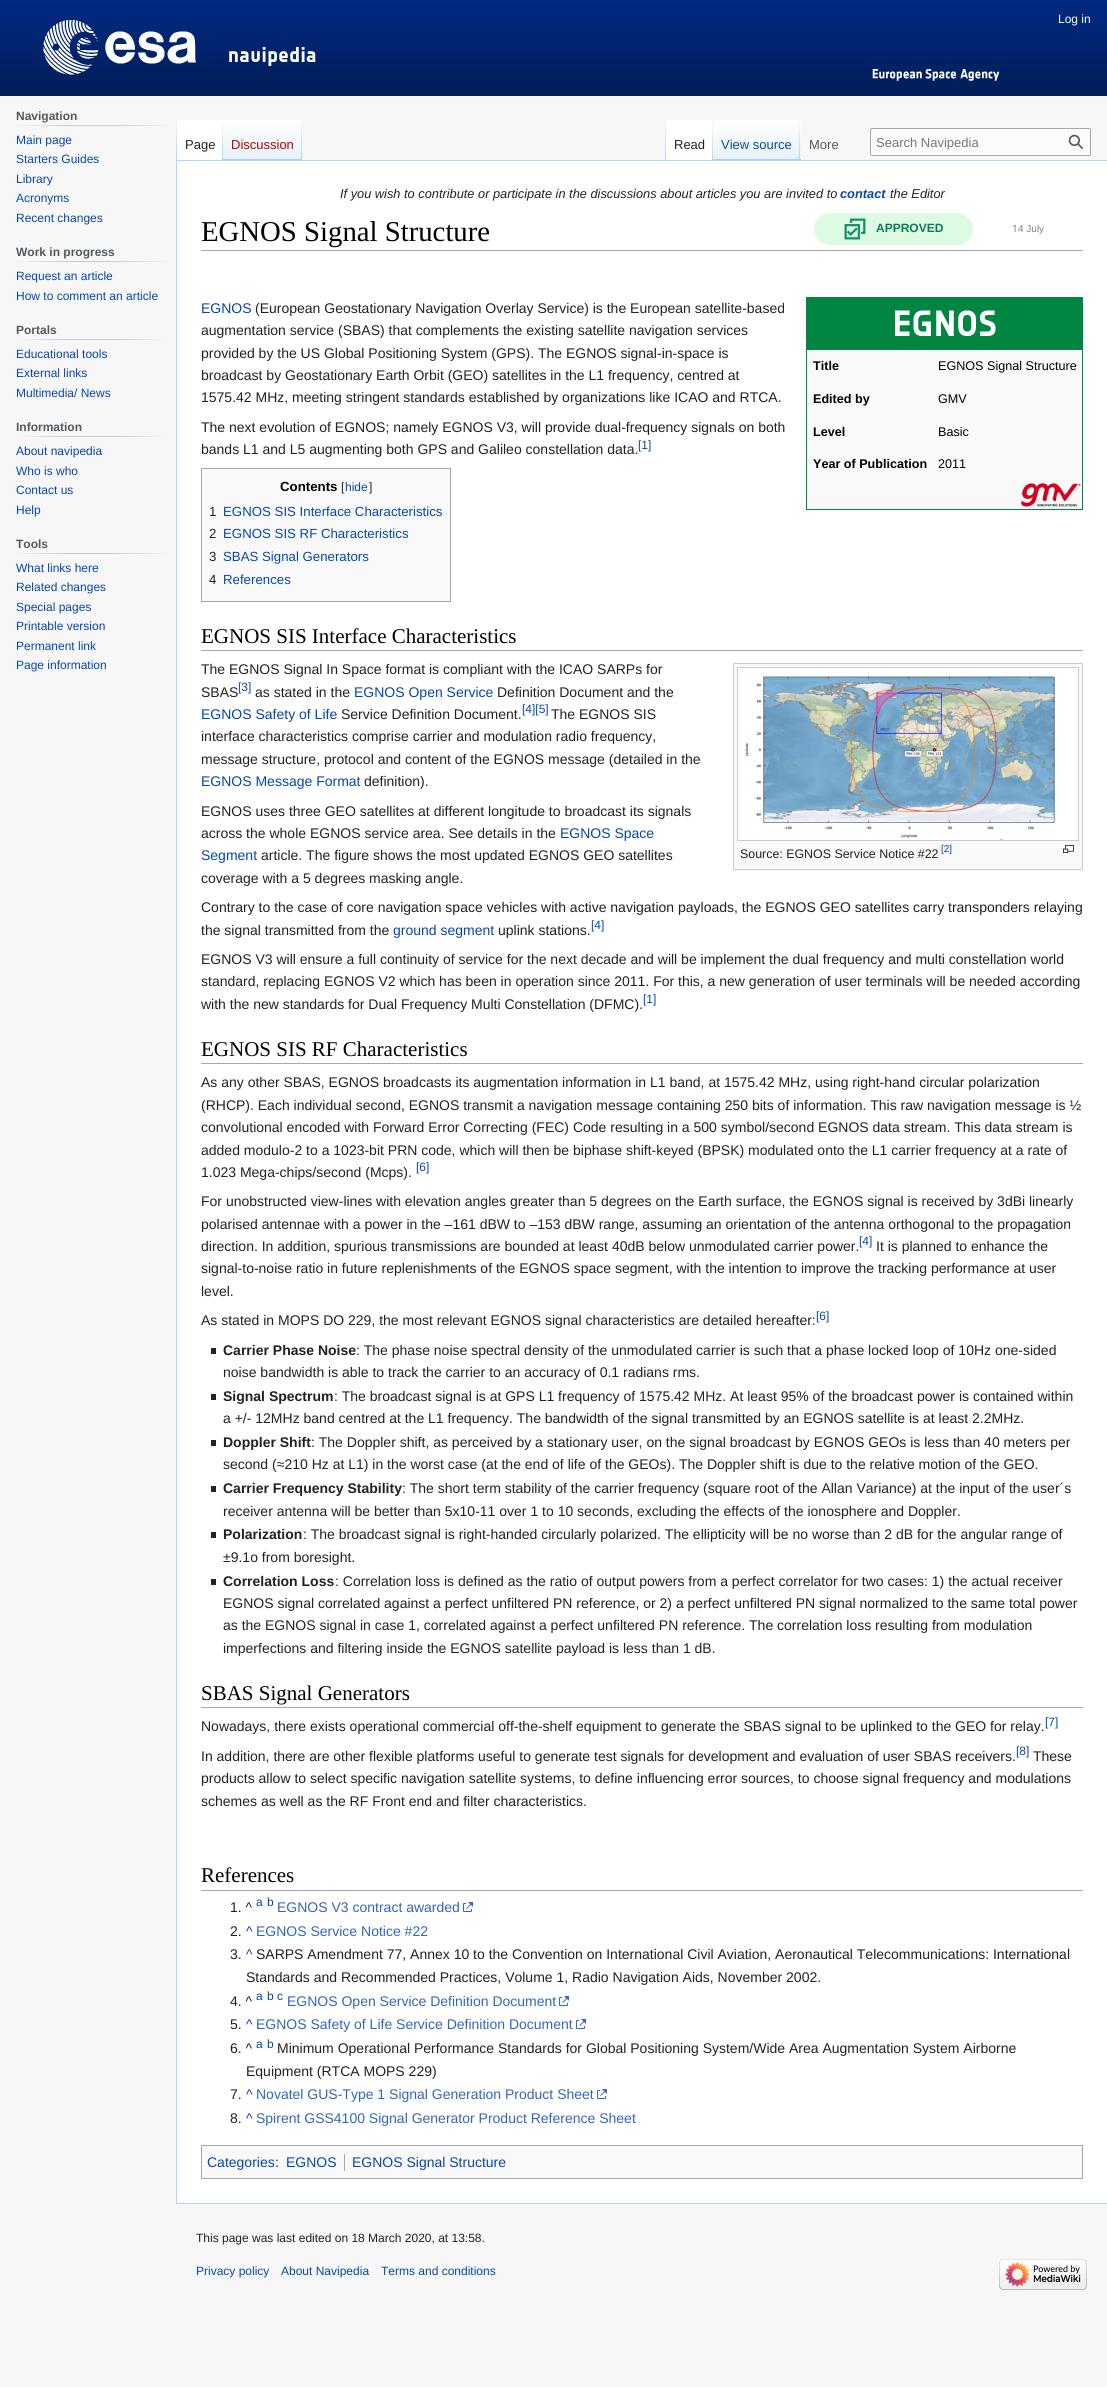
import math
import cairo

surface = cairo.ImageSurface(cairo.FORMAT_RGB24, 1107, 2387)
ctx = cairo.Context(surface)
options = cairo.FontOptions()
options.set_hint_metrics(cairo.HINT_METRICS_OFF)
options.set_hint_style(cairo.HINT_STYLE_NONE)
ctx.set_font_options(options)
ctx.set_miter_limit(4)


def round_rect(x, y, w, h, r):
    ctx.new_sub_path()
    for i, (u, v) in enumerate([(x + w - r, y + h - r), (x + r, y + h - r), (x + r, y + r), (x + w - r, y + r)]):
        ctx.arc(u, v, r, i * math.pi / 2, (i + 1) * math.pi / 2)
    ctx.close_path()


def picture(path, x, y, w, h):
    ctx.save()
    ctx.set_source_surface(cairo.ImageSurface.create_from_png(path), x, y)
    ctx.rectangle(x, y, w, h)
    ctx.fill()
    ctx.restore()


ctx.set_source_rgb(0.965, 0.965, 0.965)
ctx.paint()
picture("img1.png", 0, 0, 1107, 96)
ctx.select_font_face("Liberation Sans")
ctx.set_font_size(12)
ctx.set_source_rgb(1, 1, 1)
ctx.move_to(1058, 23)
ctx.show_text("Log in")
gradient = cairo.LinearGradient(177, 120, 177, 160)
gradient.add_color_stop_rgba(0, 0.965, 0.965, 0.965, 1)
gradient.add_color_stop_rgba(1, 0.655, 0.843, 0.976, 1)
ctx.set_source(gradient)
ctx.rectangle(176, 120, 1, 40)
ctx.fill()
ctx.set_source_rgb(1, 1, 1)
ctx.rectangle(177, 120, 45, 40)
ctx.fill()
gradient = cairo.LinearGradient(223, 120, 223, 160)
gradient.add_color_stop_rgba(0, 1, 1, 1, 1)
gradient.add_color_stop_rgba(1, 0.655, 0.843, 0.976, 1)
ctx.set_source(gradient)
ctx.rectangle(222, 120, 1, 40)
ctx.fill()
ctx.set_font_size(13)
ctx.set_source_rgb(0.125, 0.129, 0.133)
ctx.move_to(185, 149)
ctx.show_text("Page")
gradient = cairo.LinearGradient(263, 160, 263, 120)
gradient.add_color_stop_rgba(0, 0.467, 0.757, 0.965, 1)
gradient.add_color_stop_rgba(0.03, 0.91, 0.949, 0.973, 1)
gradient.add_color_stop_rgba(1, 1, 1, 1, 1)
ctx.set_source(gradient)
ctx.rectangle(223, 120, 79, 40)
ctx.fill()
gradient = cairo.LinearGradient(302, 120, 302, 160)
gradient.add_color_stop_rgba(0, 0.655, 0.843, 0.976, 0)
gradient.add_color_stop_rgba(1, 0.655, 0.843, 0.976, 1)
ctx.set_source(gradient)
ctx.rectangle(301, 120, 1, 40)
ctx.fill()
ctx.set_source_rgb(0.729, 0, 0)
ctx.move_to(231, 149)
ctx.show_text("Discussion")
gradient = cairo.LinearGradient(666, 120, 666, 160)
gradient.add_color_stop_rgba(0, 0.965, 0.965, 0.965, 1)
gradient.add_color_stop_rgba(1, 0.655, 0.843, 0.976, 1)
ctx.set_source(gradient)
ctx.rectangle(665, 120, 1, 40)
ctx.fill()
ctx.set_source_rgb(1, 1, 1)
ctx.rectangle(666, 120, 46, 40)
ctx.fill()
gradient = cairo.LinearGradient(713, 120, 713, 160)
gradient.add_color_stop_rgba(0, 1, 1, 1, 1)
gradient.add_color_stop_rgba(1, 0.655, 0.843, 0.976, 1)
ctx.set_source(gradient)
ctx.rectangle(712, 120, 1, 40)
ctx.fill()
ctx.set_source_rgb(0.125, 0.129, 0.133)
ctx.move_to(674, 149)
ctx.show_text("Read")
gradient = cairo.LinearGradient(757, 160, 757, 120)
gradient.add_color_stop_rgba(0, 0.467, 0.757, 0.965, 1)
gradient.add_color_stop_rgba(0.03, 0.91, 0.949, 0.973, 1)
gradient.add_color_stop_rgba(1, 1, 1, 1, 1)
ctx.set_source(gradient)
ctx.rectangle(713, 120, 87, 40)
ctx.fill()
gradient = cairo.LinearGradient(800, 120, 800, 160)
gradient.add_color_stop_rgba(0, 0.655, 0.843, 0.976, 0)
gradient.add_color_stop_rgba(1, 0.655, 0.843, 0.976, 1)
ctx.set_source(gradient)
ctx.rectangle(799, 120, 1, 40)
ctx.fill()
ctx.set_source_rgb(0.024, 0.271, 0.678)
ctx.move_to(721, 149)
ctx.show_text("View source")
gradient = cairo.LinearGradient(801, 160, 801, 120)
gradient.add_color_stop_rgba(0, 0.467, 0.757, 0.965, 1)
gradient.add_color_stop_rgba(0.03, 0.91, 0.949, 0.973, 1)
gradient.add_color_stop_rgba(1, 1, 1, 1, 1)
ctx.set_source(gradient)
ctx.rectangle(800, 120, 1, 40)
ctx.fill()
ctx.set_source_rgb(0.329, 0.349, 0.365)
ctx.move_to(809, 149)
ctx.show_text("More")
ctx.set_source_rgb(0.984, 0.984, 0.984)
round_rect(870.5, 128.5, 220, 27, 1.5)
ctx.fill_preserve()
ctx.set_source_rgb(0.635, 0.663, 0.694)
ctx.set_line_width(1)
ctx.stroke()
ctx.set_source_rgb(0.447, 0.467, 0.49)
ctx.move_to(876, 147)
ctx.show_text("Search Navipedia")
picture("img2.png", 1068, 134, 15, 15)
gradient = cairo.LinearGradient(16, 126, 168, 126)
gradient.add_color_stop_rgba(0, 0.965, 0.965, 0.965, 1)
gradient.add_color_stop_rgba(0.33, 0.784, 0.8, 0.82, 1)
gradient.add_color_stop_rgba(0.66, 0.784, 0.8, 0.82, 1)
gradient.add_color_stop_rgba(1, 0.965, 0.965, 0.965, 1)
ctx.set_source(gradient)
ctx.rectangle(16, 125, 152, 1)
ctx.fill()
ctx.select_font_face("Liberation Sans", cairo.FONT_SLANT_NORMAL, cairo.FONT_WEIGHT_BOLD)
ctx.set_font_size(12)
ctx.set_source_rgb(0.329, 0.349, 0.365)
ctx.move_to(16, 120)
ctx.show_text("Navigation")
ctx.select_font_face("Liberation Sans")
ctx.set_source_rgb(0.024, 0.271, 0.678)
ctx.move_to(16, 144)
ctx.show_text("Main page")
ctx.move_to(16, 163)
ctx.show_text("Starters Guides")
ctx.move_to(16, 183)
ctx.show_text("Library")
ctx.move_to(16, 202)
ctx.show_text("Acronyms")
ctx.move_to(16, 222)
ctx.show_text("Recent changes")
gradient = cairo.LinearGradient(16, 262, 168, 262)
gradient.add_color_stop_rgba(0, 0.965, 0.965, 0.965, 1)
gradient.add_color_stop_rgba(0.33, 0.784, 0.8, 0.82, 1)
gradient.add_color_stop_rgba(0.66, 0.784, 0.8, 0.82, 1)
gradient.add_color_stop_rgba(1, 0.965, 0.965, 0.965, 1)
ctx.set_source(gradient)
ctx.rectangle(16, 261, 152, 1)
ctx.fill()
ctx.select_font_face("Liberation Sans", cairo.FONT_SLANT_NORMAL, cairo.FONT_WEIGHT_BOLD)
ctx.set_source_rgb(0.329, 0.349, 0.365)
ctx.move_to(16, 256)
ctx.show_text("Work in progress")
ctx.select_font_face("Liberation Sans")
ctx.set_source_rgb(0.024, 0.271, 0.678)
ctx.move_to(16, 280)
ctx.show_text("Request an article")
ctx.move_to(16, 300)
ctx.show_text("How to comment an article")
gradient = cairo.LinearGradient(16, 340, 168, 340)
gradient.add_color_stop_rgba(0, 0.965, 0.965, 0.965, 1)
gradient.add_color_stop_rgba(0.33, 0.784, 0.8, 0.82, 1)
gradient.add_color_stop_rgba(0.66, 0.784, 0.8, 0.82, 1)
gradient.add_color_stop_rgba(1, 0.965, 0.965, 0.965, 1)
ctx.set_source(gradient)
ctx.rectangle(16, 339, 152, 1)
ctx.fill()
ctx.select_font_face("Liberation Sans", cairo.FONT_SLANT_NORMAL, cairo.FONT_WEIGHT_BOLD)
ctx.set_source_rgb(0.329, 0.349, 0.365)
ctx.move_to(16, 334)
ctx.show_text("Portals")
ctx.select_font_face("Liberation Sans")
ctx.set_source_rgb(0.024, 0.271, 0.678)
ctx.move_to(16, 358)
ctx.show_text("Educational tools")
ctx.move_to(16, 377)
ctx.show_text("External links")
ctx.move_to(16, 397)
ctx.show_text("Multimedia/ News")
gradient = cairo.LinearGradient(16, 437, 168, 437)
gradient.add_color_stop_rgba(0, 0.965, 0.965, 0.965, 1)
gradient.add_color_stop_rgba(0.33, 0.784, 0.8, 0.82, 1)
gradient.add_color_stop_rgba(0.66, 0.784, 0.8, 0.82, 1)
gradient.add_color_stop_rgba(1, 0.965, 0.965, 0.965, 1)
ctx.set_source(gradient)
ctx.rectangle(16, 436, 152, 1)
ctx.fill()
ctx.select_font_face("Liberation Sans", cairo.FONT_SLANT_NORMAL, cairo.FONT_WEIGHT_BOLD)
ctx.set_source_rgb(0.329, 0.349, 0.365)
ctx.move_to(16, 431)
ctx.show_text("Information")
ctx.select_font_face("Liberation Sans")
ctx.set_source_rgb(0.024, 0.271, 0.678)
ctx.move_to(16, 455)
ctx.show_text("About navipedia")
ctx.move_to(16, 475)
ctx.show_text("Who is who")
ctx.move_to(16, 494)
ctx.show_text("Contact us")
ctx.move_to(16, 514)
ctx.show_text("Help")
gradient = cairo.LinearGradient(16, 554, 168, 554)
gradient.add_color_stop_rgba(0, 0.965, 0.965, 0.965, 1)
gradient.add_color_stop_rgba(0.33, 0.784, 0.8, 0.82, 1)
gradient.add_color_stop_rgba(0.66, 0.784, 0.8, 0.82, 1)
gradient.add_color_stop_rgba(1, 0.965, 0.965, 0.965, 1)
ctx.set_source(gradient)
ctx.rectangle(16, 553, 152, 1)
ctx.fill()
ctx.select_font_face("Liberation Sans", cairo.FONT_SLANT_NORMAL, cairo.FONT_WEIGHT_BOLD)
ctx.set_source_rgb(0.329, 0.349, 0.365)
ctx.move_to(16, 548)
ctx.show_text("Tools")
ctx.select_font_face("Liberation Sans")
ctx.set_source_rgb(0.024, 0.271, 0.678)
ctx.move_to(16, 572)
ctx.show_text("What links here")
ctx.move_to(16, 591)
ctx.show_text("Related changes")
ctx.move_to(16, 611)
ctx.show_text("Special pages")
ctx.move_to(16, 630)
ctx.show_text("Printable version")
ctx.move_to(16, 650)
ctx.show_text("Permanent link")
ctx.move_to(16, 669)
ctx.show_text("Page information")
ctx.set_source_rgb(1, 1, 1)
ctx.rectangle(177, 161, 930, 2042)
ctx.fill()
ctx.set_source_rgb(0.655, 0.843, 0.976)
ctx.rectangle(176, 160, 931, 1)
ctx.fill()
ctx.rectangle(176, 2203, 931, 1)
ctx.fill()
ctx.rectangle(176, 160, 1, 2044)
ctx.fill()
ctx.select_font_face("Liberation Sans", cairo.FONT_SLANT_ITALIC)
ctx.set_font_size(12.8)
ctx.set_source_rgb(0.125, 0.129, 0.133)
ctx.move_to(340, 198)
ctx.show_text("If you wish to contribute or participate in the discussions about articles you are invited to")
ctx.select_font_face("Liberation Sans", cairo.FONT_SLANT_ITALIC, cairo.FONT_WEIGHT_BOLD)
ctx.set_source_rgb(0.024, 0.271, 0.678)
ctx.move_to(840, 198)
ctx.show_text("contact")
ctx.select_font_face("Liberation Sans", cairo.FONT_SLANT_ITALIC)
ctx.set_source_rgb(0.125, 0.129, 0.133)
ctx.move_to(890, 198)
ctx.show_text("the Editor")
ctx.set_source_rgb(0.635, 0.663, 0.694)
ctx.rectangle(201, 250, 882, 1)
ctx.fill()
ctx.select_font_face("Liberation Serif")
ctx.set_font_size(28.75)
ctx.set_source_rgb(0, 0, 0)
ctx.move_to(201, 241)
ctx.show_text("EGNOS Signal Structure")
ctx.set_source_rgb(0.867, 0.984, 0.886)
round_rect(814, 213, 159, 32, 16)
ctx.fill()
picture("img3.png", 844, 218, 22, 22)
ctx.select_font_face("Liberation Sans", cairo.FONT_SLANT_NORMAL, cairo.FONT_WEIGHT_BOLD)
ctx.set_font_size(12)
ctx.set_source_rgb(0.059, 0.475, 0.345)
ctx.move_to(876, 232)
ctx.show_text("APPROVED")
ctx.select_font_face("Noto Sans")
ctx.set_font_size(10)
ctx.set_source_rgb(0.502, 0.502, 0.502)
ctx.move_to(1012, 232)
ctx.show_text("1")
ctx.select_font_face("Liberation Sans")
ctx.move_to(1018, 232)
ctx.show_text("4 July")
ctx.set_font_size(14)
ctx.set_source_rgb(0.024, 0.271, 0.678)
ctx.move_to(201, 313)
ctx.show_text("EGNOS")
ctx.set_source_rgb(0.125, 0.129, 0.133)
ctx.move_to(255, 313)
ctx.show_text("(European Geostationary Navigation Overlay Service) is the European satellite-based")
ctx.move_to(201, 335)
ctx.show_text("augmentation service (SBAS) that complements the existing satellite navigation services")
ctx.move_to(201, 358)
ctx.show_text("provided by the US Global Positioning System (GPS). The EGNOS signal-in-space is")
ctx.move_to(201, 380)
ctx.show_text("broadcast by Geostationary Earth Orbit (GEO) satellites in the L1 frequency, centred at")
ctx.move_to(201, 402)
ctx.show_text("1575.42 MHz, meeting stringent standards established by organizations like ICAO and RTCA.")
ctx.set_source_rgb(0.976, 0.976, 0.976)
ctx.rectangle(807, 350, 275, 159)
ctx.fill()
ctx.rectangle(806.5, 297.5, 276, 212)
ctx.set_source_rgb(0, 0.522, 0.259)
ctx.stroke()
ctx.rectangle(807, 298, 275, 52)
ctx.fill()
picture("img4.png", 895, 310, 101, 26)
ctx.select_font_face("Liberation Sans", cairo.FONT_SLANT_NORMAL, cairo.FONT_WEIGHT_BOLD)
ctx.set_font_size(12.6)
ctx.set_source_rgb(0, 0, 0)
ctx.move_to(813, 370)
ctx.show_text("Title")
ctx.select_font_face("Liberation Sans")
ctx.move_to(938, 370)
ctx.show_text("EGNOS Signal Structure")
ctx.select_font_face("Liberation Sans", cairo.FONT_SLANT_NORMAL, cairo.FONT_WEIGHT_BOLD)
ctx.move_to(813, 403)
ctx.show_text("Edited by")
ctx.select_font_face("Liberation Sans")
ctx.move_to(938, 403)
ctx.show_text("GMV")
ctx.select_font_face("Liberation Sans", cairo.FONT_SLANT_NORMAL, cairo.FONT_WEIGHT_BOLD)
ctx.move_to(813, 436)
ctx.show_text("Level")
ctx.select_font_face("Liberation Sans")
ctx.move_to(938, 436)
ctx.show_text("Basic")
ctx.select_font_face("Liberation Sans", cairo.FONT_SLANT_NORMAL, cairo.FONT_WEIGHT_BOLD)
ctx.move_to(813, 468)
ctx.show_text("Year of Publication")
ctx.select_font_face("Liberation Sans")
ctx.move_to(938, 468)
ctx.show_text("2011")
picture("img5.png", 1021, 483, 60, 24)
ctx.set_font_size(14)
ctx.set_source_rgb(0.125, 0.129, 0.133)
ctx.move_to(201, 432)
ctx.show_text("The next evolution of EGNOS; namely EGNOS V3, will provide dual-frequency signals on both")
ctx.move_to(201, 454)
ctx.show_text("bands L1 and L5 augmenting both GPS and Galileo constellation data.")
ctx.set_font_size(12)
ctx.set_source_rgb(0.024, 0.271, 0.678)
ctx.move_to(638, 449)
ctx.show_text("[1]")
ctx.set_source_rgb(0.973, 0.976, 0.98)
ctx.rectangle(201.5, 468.5, 249, 133)
ctx.fill_preserve()
ctx.set_source_rgb(0.635, 0.663, 0.694)
ctx.stroke()
ctx.select_font_face("Liberation Sans", cairo.FONT_SLANT_NORMAL, cairo.FONT_WEIGHT_BOLD)
ctx.set_font_size(13.25)
ctx.set_source_rgb(0, 0, 0)
ctx.move_to(280, 491)
ctx.show_text("Contents")
ctx.select_font_face("Liberation Sans")
ctx.set_font_size(12)
ctx.set_source_rgb(0.125, 0.129, 0.133)
ctx.move_to(341, 491)
ctx.show_text("[")
ctx.set_source_rgb(0.024, 0.271, 0.678)
ctx.move_to(345, 491)
ctx.show_text("hide")
ctx.set_source_rgb(0.125, 0.129, 0.133)
ctx.move_to(369, 491)
ctx.show_text("]")
ctx.set_font_size(13.25)
ctx.move_to(209, 516)
ctx.show_text("1")
ctx.set_source_rgb(0.024, 0.271, 0.678)
ctx.move_to(223, 516)
ctx.show_text("EGNOS SIS Interface Characteristics")
ctx.set_source_rgb(0.125, 0.129, 0.133)
ctx.move_to(209, 538)
ctx.show_text("2")
ctx.set_source_rgb(0.024, 0.271, 0.678)
ctx.move_to(223, 538)
ctx.show_text("EGNOS SIS RF Characteristics")
ctx.set_source_rgb(0.125, 0.129, 0.133)
ctx.move_to(209, 561)
ctx.show_text("3")
ctx.set_source_rgb(0.024, 0.271, 0.678)
ctx.move_to(223, 561)
ctx.show_text("SBAS Signal Generators")
ctx.set_source_rgb(0.125, 0.129, 0.133)
ctx.move_to(209, 584)
ctx.show_text("4")
ctx.set_source_rgb(0.024, 0.271, 0.678)
ctx.move_to(223, 584)
ctx.show_text("References")
ctx.set_source_rgb(0.635, 0.663, 0.694)
ctx.rectangle(201, 650, 882, 1)
ctx.fill()
ctx.select_font_face("Liberation Serif")
ctx.set_font_size(21)
ctx.set_source_rgb(0, 0, 0)
ctx.move_to(201, 643)
ctx.show_text("EGNOS SIS Interface Characteristics")
ctx.select_font_face("Liberation Sans")
ctx.set_font_size(14)
ctx.set_source_rgb(0.125, 0.129, 0.133)
ctx.move_to(201, 674)
ctx.show_text("The EGNOS Signal In Space format is compliant with the ICAO SARPs for")
ctx.move_to(201, 697)
ctx.show_text("SBAS")
ctx.set_font_size(12)
ctx.set_source_rgb(0.024, 0.271, 0.678)
ctx.move_to(238, 691)
ctx.show_text("[3]")
ctx.set_font_size(14)
ctx.set_source_rgb(0.125, 0.129, 0.133)
ctx.move_to(255, 697)
ctx.show_text("as stated in the")
ctx.set_source_rgb(0.024, 0.271, 0.678)
ctx.move_to(354, 697)
ctx.show_text("EGNOS Open Service")
ctx.set_source_rgb(0.125, 0.129, 0.133)
ctx.move_to(497, 697)
ctx.show_text("Definition Document and the")
ctx.set_source_rgb(0.024, 0.271, 0.678)
ctx.move_to(201, 719)
ctx.show_text("EGNOS Safety of Life")
ctx.set_source_rgb(0.125, 0.129, 0.133)
ctx.move_to(341, 719)
ctx.show_text("Service Definition Document.")
ctx.set_font_size(12)
ctx.set_source_rgb(0.024, 0.271, 0.678)
ctx.move_to(522, 713)
ctx.show_text("[4][5]")
ctx.set_font_size(14)
ctx.set_source_rgb(0.125, 0.129, 0.133)
ctx.move_to(551, 719)
ctx.show_text("The EGNOS SIS")
ctx.move_to(201, 741)
ctx.show_text("interface characteristics comprise carrier and modulation radio frequency,")
ctx.move_to(201, 764)
ctx.show_text("message structure, protocol and content of the EGNOS message (detailed in the")
ctx.set_source_rgb(0.024, 0.271, 0.678)
ctx.move_to(201, 786)
ctx.show_text("EGNOS Message Format")
ctx.set_source_rgb(0.125, 0.129, 0.133)
ctx.move_to(364, 786)
ctx.show_text("definition).")
ctx.move_to(201, 816)
ctx.show_text("EGNOS uses three GEO satellites at different longitude to broadcast its signals")
ctx.move_to(201, 838)
ctx.show_text("across the whole EGNOS service area. See details in the")
ctx.set_source_rgb(0.024, 0.271, 0.678)
ctx.move_to(560, 838)
ctx.show_text("EGNOS Space")
ctx.move_to(201, 860)
ctx.show_text("Segment")
ctx.set_source_rgb(0.125, 0.129, 0.133)
ctx.move_to(261, 860)
ctx.show_text("article. The figure shows the most updated EGNOS GEO satellites")
ctx.move_to(201, 883)
ctx.show_text("coverage with a 5 degrees masking angle.")
ctx.set_source_rgb(0.973, 0.976, 0.98)
ctx.rectangle(733.5, 663.5, 349, 206)
ctx.fill_preserve()
ctx.set_source_rgb(0.784, 0.8, 0.82)
ctx.stroke()
ctx.set_source_rgb(1, 1, 1)
ctx.rectangle(737.5, 667.5, 341, 173)
ctx.fill_preserve()
ctx.set_source_rgb(0.784, 0.8, 0.82)
ctx.stroke()
picture("img6.png", 745, 674, 311, 166)
ctx.set_font_size(12.4)
ctx.set_source_rgb(0.125, 0.129, 0.133)
ctx.move_to(740, 858)
ctx.show_text("Source: EGNOS Service Notice #22")
ctx.set_font_size(10)
ctx.set_source_rgb(0.024, 0.271, 0.678)
ctx.move_to(941, 852)
ctx.show_text("[2]")
picture("img7.png", 1063, 845, 11, 8)
ctx.set_font_size(14)
ctx.set_source_rgb(0.125, 0.129, 0.133)
ctx.move_to(201, 912)
ctx.show_text("Contrary to the case of core navigation space vehicles with active navigation payloads, the EGNOS GEO satellites carry transponders relaying")
ctx.move_to(201, 935)
ctx.show_text("the signal transmitted from the")
ctx.set_source_rgb(0.024, 0.271, 0.678)
ctx.move_to(393, 935)
ctx.show_text("ground segment")
ctx.set_source_rgb(0.125, 0.129, 0.133)
ctx.move_to(498, 935)
ctx.show_text("uplink stations.")
ctx.set_font_size(12)
ctx.set_source_rgb(0.024, 0.271, 0.678)
ctx.move_to(591, 929)
ctx.show_text("[4]")
ctx.set_font_size(14)
ctx.set_source_rgb(0.125, 0.129, 0.133)
ctx.move_to(201, 964)
ctx.show_text("EGNOS V3 will ensure a full continuity of service for the next decade and will be implement the dual frequency and multi constellation world")
ctx.move_to(201, 986)
ctx.show_text("standard, replacing EGNOS V2 which has been in operation since 2011. For this, a new generation of user terminals will be needed according")
ctx.move_to(201, 1009)
ctx.show_text("with the new standards for Dual Frequency Multi Constellation (DFMC).")
ctx.set_font_size(12)
ctx.set_source_rgb(0.024, 0.271, 0.678)
ctx.move_to(643, 1003)
ctx.show_text("[1]")
ctx.set_source_rgb(0.635, 0.663, 0.694)
ctx.rectangle(201, 1063, 882, 1)
ctx.fill()
ctx.select_font_face("Liberation Serif")
ctx.set_font_size(21)
ctx.set_source_rgb(0, 0, 0)
ctx.move_to(201, 1056)
ctx.show_text("EGNOS SIS RF Characteristics")
ctx.select_font_face("Liberation Sans")
ctx.set_font_size(14)
ctx.set_source_rgb(0.125, 0.129, 0.133)
ctx.move_to(201, 1087)
ctx.show_text("As any other SBAS, EGNOS broadcasts its augmentation information in L1 band, at 1575.42 MHz, using right-hand circular polarization")
ctx.move_to(201, 1110)
ctx.show_text("(RHCP). Each individual second, EGNOS transmit a navigation message containing 250 bits of information. This raw navigation message is ½")
ctx.move_to(201, 1132)
ctx.show_text("convolutional encoded with Forward Error Correcting (FEC) Code resulting in a 500 symbol/second EGNOS data stream. This data stream is")
ctx.move_to(201, 1155)
ctx.show_text("added modulo-2 to a 1023-bit PRN code, which will then be biphase shift-keyed (BPSK) modulated onto the L1 carrier frequency at a rate of")
ctx.move_to(201, 1177)
ctx.show_text("1.023 Mega-chips/second (Mcps).")
ctx.set_font_size(12)
ctx.set_source_rgb(0.024, 0.271, 0.678)
ctx.move_to(416, 1171)
ctx.show_text("[6]")
ctx.set_font_size(14)
ctx.set_source_rgb(0.125, 0.129, 0.133)
ctx.move_to(201, 1206)
ctx.show_text("For unobstructed view-lines with elevation angles greater than 5 degrees on the Earth surface, the EGNOS signal is received by 3dBi linearly")
ctx.move_to(201, 1229)
ctx.show_text("polarised antennae with a power in the –161 dBW to –153 dBW range, assuming an orientation of the antenna orthogonal to the propagation")
ctx.move_to(201, 1251)
ctx.show_text("direction. In addition, spurious transmissions are bounded at least 40dB below unmodulated carrier power.")
ctx.set_font_size(12)
ctx.set_source_rgb(0.024, 0.271, 0.678)
ctx.move_to(859, 1245)
ctx.show_text("[4]")
ctx.set_font_size(14)
ctx.set_source_rgb(0.125, 0.129, 0.133)
ctx.move_to(876, 1251)
ctx.show_text("It is planned to enhance the")
ctx.move_to(201, 1273)
ctx.show_text("signal-to-noise ratio in future replenishments of the EGNOS space segment, with the intention to improve the tracking performance at user")
ctx.move_to(201, 1296)
ctx.show_text("level.")
ctx.move_to(201, 1325)
ctx.show_text("As stated in MOPS DO 229, the most relevant EGNOS signal characteristics are detailed hereafter:")
ctx.set_font_size(12)
ctx.set_source_rgb(0.024, 0.271, 0.678)
ctx.move_to(816, 1320)
ctx.show_text("[6]")
ctx.set_source_rgb(0.125, 0.129, 0.133)
ctx.rectangle(211, 1348, 5, 6)
ctx.fill()
ctx.select_font_face("Liberation Sans", cairo.FONT_SLANT_NORMAL, cairo.FONT_WEIGHT_BOLD)
ctx.set_font_size(14)
ctx.move_to(223, 1355)
ctx.show_text("Carrier Phase Noise")
ctx.select_font_face("Liberation Sans")
ctx.move_to(356, 1355)
ctx.show_text(": The phase noise spectral density of the unmodulated carrier is such that a phase locked loop of 10Hz one-sided")
ctx.move_to(223, 1377)
ctx.show_text("noise bandwidth is able to track the carrier to an accuracy of 0.1 radians rms.")
ctx.rectangle(211, 1394, 5, 6)
ctx.fill()
ctx.select_font_face("Liberation Sans", cairo.FONT_SLANT_NORMAL, cairo.FONT_WEIGHT_BOLD)
ctx.move_to(223, 1401)
ctx.show_text("Signal Spectrum")
ctx.select_font_face("Liberation Sans")
ctx.move_to(334, 1401)
ctx.show_text(": The broadcast signal is at GPS L1 frequency of 1575.42 MHz. At least 95% of the broadcast power is contained within")
ctx.move_to(223, 1423)
ctx.show_text("a +/- 12MHz band centred at the L1 frequency. The bandwidth of the signal transmitted by an EGNOS satellite is at least 2.2MHz.")
ctx.rectangle(211, 1440, 5, 6)
ctx.fill()
ctx.select_font_face("Liberation Sans", cairo.FONT_SLANT_NORMAL, cairo.FONT_WEIGHT_BOLD)
ctx.move_to(223, 1447)
ctx.show_text("Doppler Shift")
ctx.select_font_face("Liberation Sans")
ctx.move_to(311, 1447)
ctx.show_text(": The Doppler shift, as perceived by a stationary user, on the signal broadcast by EGNOS GEOs is less than 40 meters per")
ctx.move_to(223, 1469)
ctx.show_text("second (≈210 Hz at L1) in the worst case (at the end of life of the GEOs). The Doppler shift is due to the relative motion of the GEO.")
ctx.rectangle(211, 1486, 5, 6)
ctx.fill()
ctx.select_font_face("Liberation Sans", cairo.FONT_SLANT_NORMAL, cairo.FONT_WEIGHT_BOLD)
ctx.move_to(223, 1493)
ctx.show_text("Carrier Frequency Stability")
ctx.select_font_face("Liberation Sans")
ctx.move_to(402, 1493)
ctx.show_text(": The short term stability of the carrier frequency (square root of the Allan Variance) at the input of the user´s")
ctx.move_to(223, 1516)
ctx.show_text("receiver antenna will be better than 5x10-11 over 1 to 10 seconds, excluding the effects of the ionosphere and Doppler.")
ctx.rectangle(211, 1532, 5, 6)
ctx.fill()
ctx.select_font_face("Liberation Sans", cairo.FONT_SLANT_NORMAL, cairo.FONT_WEIGHT_BOLD)
ctx.move_to(223, 1539)
ctx.show_text("Polarization")
ctx.select_font_face("Liberation Sans")
ctx.move_to(303, 1539)
ctx.show_text(": The broadcast signal is right-handed circularly polarized. The ellipticity will be no worse than 2 dB for the angular range of")
ctx.move_to(223, 1562)
ctx.show_text("±9.1o from boresight.")
ctx.rectangle(211, 1579, 5, 6)
ctx.fill()
ctx.select_font_face("Liberation Sans", cairo.FONT_SLANT_NORMAL, cairo.FONT_WEIGHT_BOLD)
ctx.move_to(223, 1586)
ctx.show_text("Correlation Loss")
ctx.select_font_face("Liberation Sans")
ctx.move_to(335, 1586)
ctx.show_text(": Correlation loss is defined as the ratio of output powers from a perfect correlator for two cases: 1) the actual receiver")
ctx.move_to(223, 1608)
ctx.show_text("EGNOS signal correlated against a perfect unfiltered PN reference, or 2) a perfect unfiltered PN signal normalized to the same total power")
ctx.move_to(223, 1630)
ctx.show_text("as the EGNOS signal in case 1, correlated against a perfect unfiltered PN reference. The correlation loss resulting from modulation")
ctx.move_to(223, 1653)
ctx.show_text("imperfections and filtering inside the EGNOS satellite payload is less than 1 dB.")
ctx.set_source_rgb(0.635, 0.663, 0.694)
ctx.rectangle(201, 1707, 882, 1)
ctx.fill()
ctx.select_font_face("Liberation Serif")
ctx.set_font_size(21)
ctx.set_source_rgb(0, 0, 0)
ctx.move_to(201, 1700)
ctx.show_text("SBAS Signal Generators")
ctx.select_font_face("Liberation Sans")
ctx.set_font_size(14)
ctx.set_source_rgb(0.125, 0.129, 0.133)
ctx.move_to(201, 1731)
ctx.show_text("Nowadays, there exists operational commercial off-the-shelf equipment to generate the SBAS signal to be uplinked to the GEO for relay.")
ctx.set_font_size(12)
ctx.set_source_rgb(0.024, 0.271, 0.678)
ctx.move_to(1045, 1726)
ctx.show_text("[7]")
ctx.set_font_size(14)
ctx.set_source_rgb(0.125, 0.129, 0.133)
ctx.move_to(201, 1761)
ctx.show_text("In addition, there are other flexible platforms useful to generate test signals for development and evaluation of user SBAS receivers.")
ctx.set_font_size(12)
ctx.set_source_rgb(0.024, 0.271, 0.678)
ctx.move_to(1016, 1755)
ctx.show_text("[8]")
ctx.set_font_size(14)
ctx.set_source_rgb(0.125, 0.129, 0.133)
ctx.move_to(1033, 1761)
ctx.show_text("These")
ctx.move_to(201, 1783)
ctx.show_text("products allow to select specific navigation satellite systems, to define influencing error sources, to choose signal frequency and modulations")
ctx.move_to(201, 1806)
ctx.show_text("schemes as well as the RF Front end and filter characteristics.")
ctx.set_source_rgb(0.635, 0.663, 0.694)
ctx.rectangle(201, 1890, 882, 1)
ctx.fill()
ctx.select_font_face("Liberation Serif")
ctx.set_font_size(21)
ctx.set_source_rgb(0, 0, 0)
ctx.move_to(201, 1882)
ctx.show_text("References")
ctx.select_font_face("Liberation Sans")
ctx.set_font_size(14)
ctx.set_source_rgb(0.125, 0.129, 0.133)
ctx.move_to(230, 1912)
ctx.show_text("1. ^")
ctx.set_font_size(12)
ctx.set_source_rgb(0.024, 0.271, 0.678)
ctx.move_to(256, 1906)
ctx.show_text("a")
ctx.move_to(267, 1906)
ctx.show_text("b")
ctx.set_font_size(14)
ctx.set_source_rgb(0.2, 0.4, 0.733)
ctx.move_to(277, 1912)
ctx.show_text("EGNOS V3 contract awarded")
picture("img8.png", 463, 1902, 10, 10)
ctx.set_source_rgb(0.125, 0.129, 0.133)
ctx.move_to(230, 1936)
ctx.show_text("2.")
ctx.set_source_rgb(0.024, 0.271, 0.678)
ctx.move_to(246, 1936)
ctx.show_text("^")
ctx.set_source_rgb(0.2, 0.4, 0.733)
ctx.move_to(256, 1936)
ctx.show_text("EGNOS Service Notice #22")
ctx.set_source_rgb(0.125, 0.129, 0.133)
ctx.move_to(230, 1959)
ctx.show_text("3.")
ctx.set_source_rgb(0.024, 0.271, 0.678)
ctx.move_to(246, 1959)
ctx.show_text("^")
ctx.set_source_rgb(0.125, 0.129, 0.133)
ctx.move_to(256, 1959)
ctx.show_text("SARPS Amendment 77, Annex 10 to the Convention on International Civil Aviation, Aeronautical Telecommunications: International")
ctx.move_to(246, 1982)
ctx.show_text("Standards and Recommended Practices, Volume 1, Radio Navigation Aids, November 2002.")
ctx.move_to(230, 2006)
ctx.show_text("4. ^")
ctx.set_font_size(12)
ctx.set_source_rgb(0.024, 0.271, 0.678)
ctx.move_to(256, 2000)
ctx.show_text("a")
ctx.move_to(267, 2000)
ctx.show_text("b")
ctx.move_to(277, 2000)
ctx.show_text("c")
ctx.set_font_size(14)
ctx.set_source_rgb(0.2, 0.4, 0.733)
ctx.move_to(287, 2006)
ctx.show_text("EGNOS Open Service Definition Document")
picture("img8.png", 559, 1996, 10, 10)
ctx.set_source_rgb(0.125, 0.129, 0.133)
ctx.move_to(230, 2029)
ctx.show_text("5.")
ctx.set_source_rgb(0.024, 0.271, 0.678)
ctx.move_to(246, 2029)
ctx.show_text("^")
ctx.set_source_rgb(0.2, 0.4, 0.733)
ctx.move_to(256, 2029)
ctx.show_text("EGNOS Safety of Life Service Definition Document")
picture("img8.png", 576, 2019, 10, 10)
ctx.set_source_rgb(0.125, 0.129, 0.133)
ctx.move_to(230, 2053)
ctx.show_text("6. ^")
ctx.set_font_size(12)
ctx.set_source_rgb(0.024, 0.271, 0.678)
ctx.move_to(256, 2048)
ctx.show_text("a")
ctx.move_to(267, 2048)
ctx.show_text("b")
ctx.set_font_size(14)
ctx.set_source_rgb(0.125, 0.129, 0.133)
ctx.move_to(277, 2053)
ctx.show_text("Minimum Operational Performance Standards for Global Positioning System/Wide Area Augmentation System Airborne")
ctx.move_to(246, 2076)
ctx.show_text("Equipment (RTCA MOPS 229)")
ctx.move_to(230, 2099)
ctx.show_text("7.")
ctx.set_source_rgb(0.024, 0.271, 0.678)
ctx.move_to(246, 2099)
ctx.show_text("^")
ctx.set_source_rgb(0.2, 0.4, 0.733)
ctx.move_to(256, 2099)
ctx.show_text("Novatel GUS-Type 1 Signal Generation Product Sheet")
picture("img8.png", 597, 2089, 10, 10)
ctx.set_source_rgb(0.125, 0.129, 0.133)
ctx.move_to(230, 2123)
ctx.show_text("8.")
ctx.set_source_rgb(0.024, 0.271, 0.678)
ctx.move_to(246, 2123)
ctx.show_text("^")
ctx.set_source_rgb(0.2, 0.4, 0.733)
ctx.move_to(256, 2123)
ctx.show_text("Spirent GSS4100 Signal Generator Product Reference Sheet")
ctx.set_source_rgb(0.973, 0.976, 0.98)
ctx.rectangle(201.5, 2145.5, 881, 33)
ctx.fill_preserve()
ctx.set_source_rgb(0.635, 0.663, 0.694)
ctx.stroke()
ctx.set_source_rgb(0.024, 0.271, 0.678)
ctx.move_to(207, 2167)
ctx.show_text("Categories")
ctx.set_source_rgb(0.125, 0.129, 0.133)
ctx.move_to(275, 2167)
ctx.show_text(":")
ctx.set_source_rgb(0.024, 0.271, 0.678)
ctx.move_to(286, 2167)
ctx.show_text("EGNOS")
ctx.set_source_rgb(0.635, 0.663, 0.694)
ctx.rectangle(344, 2154, 1, 17)
ctx.fill()
ctx.set_source_rgb(0.024, 0.271, 0.678)
ctx.move_to(352, 2167)
ctx.show_text("EGNOS Signal Structure")
ctx.set_font_size(12)
ctx.set_source_rgb(0.125, 0.129, 0.133)
ctx.move_to(196, 2242)
ctx.show_text("This page was last edited on 18 March 2020, at 13:58.")
ctx.set_source_rgb(0.024, 0.271, 0.678)
ctx.move_to(196, 2275)
ctx.show_text("Privacy policy")
ctx.move_to(281, 2275)
ctx.show_text("About Navipedia")
ctx.move_to(381, 2275)
ctx.show_text("Terms and conditions")
picture("img9.png", 999, 2259, 88, 31)
surface.write_to_png("page.png")
